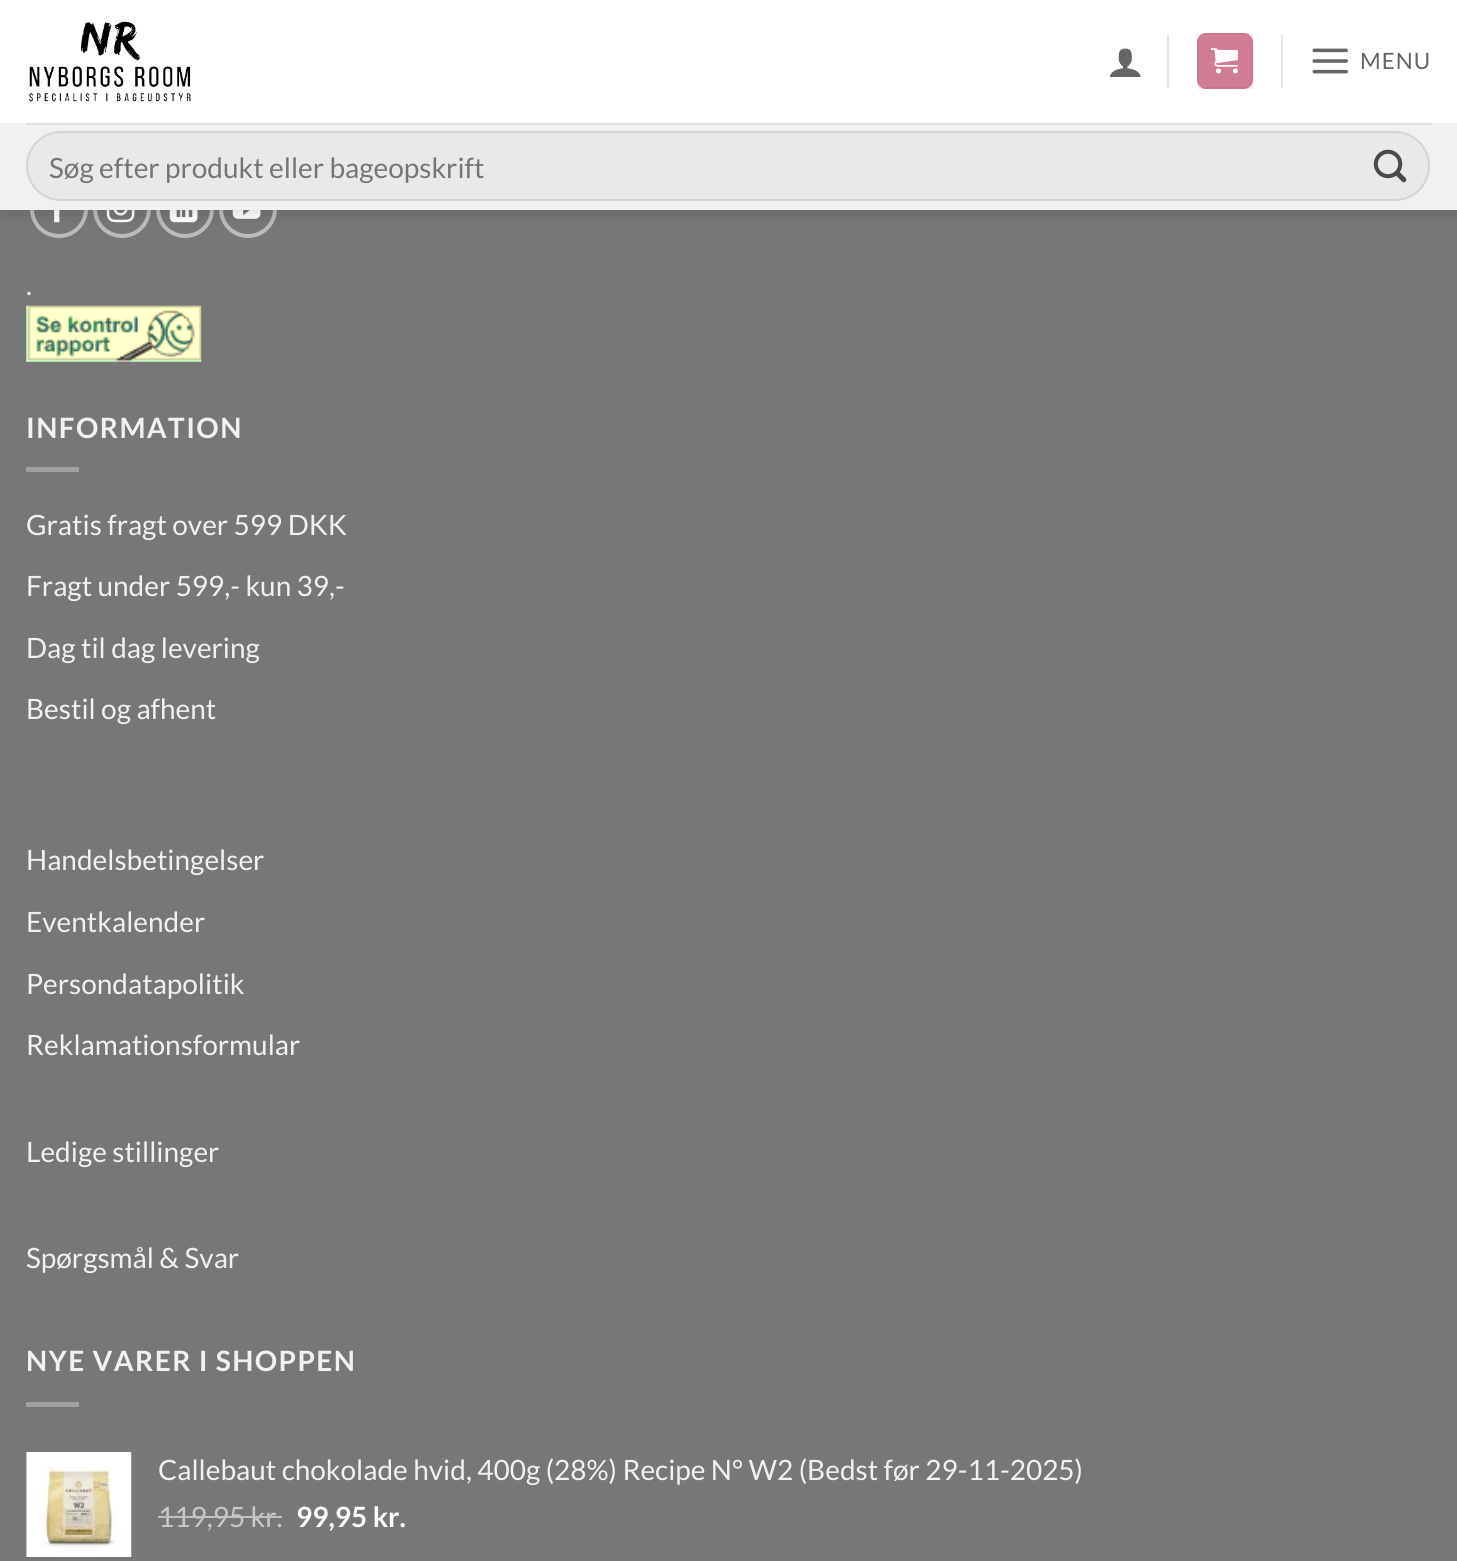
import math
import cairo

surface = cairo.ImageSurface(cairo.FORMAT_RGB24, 1457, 1561)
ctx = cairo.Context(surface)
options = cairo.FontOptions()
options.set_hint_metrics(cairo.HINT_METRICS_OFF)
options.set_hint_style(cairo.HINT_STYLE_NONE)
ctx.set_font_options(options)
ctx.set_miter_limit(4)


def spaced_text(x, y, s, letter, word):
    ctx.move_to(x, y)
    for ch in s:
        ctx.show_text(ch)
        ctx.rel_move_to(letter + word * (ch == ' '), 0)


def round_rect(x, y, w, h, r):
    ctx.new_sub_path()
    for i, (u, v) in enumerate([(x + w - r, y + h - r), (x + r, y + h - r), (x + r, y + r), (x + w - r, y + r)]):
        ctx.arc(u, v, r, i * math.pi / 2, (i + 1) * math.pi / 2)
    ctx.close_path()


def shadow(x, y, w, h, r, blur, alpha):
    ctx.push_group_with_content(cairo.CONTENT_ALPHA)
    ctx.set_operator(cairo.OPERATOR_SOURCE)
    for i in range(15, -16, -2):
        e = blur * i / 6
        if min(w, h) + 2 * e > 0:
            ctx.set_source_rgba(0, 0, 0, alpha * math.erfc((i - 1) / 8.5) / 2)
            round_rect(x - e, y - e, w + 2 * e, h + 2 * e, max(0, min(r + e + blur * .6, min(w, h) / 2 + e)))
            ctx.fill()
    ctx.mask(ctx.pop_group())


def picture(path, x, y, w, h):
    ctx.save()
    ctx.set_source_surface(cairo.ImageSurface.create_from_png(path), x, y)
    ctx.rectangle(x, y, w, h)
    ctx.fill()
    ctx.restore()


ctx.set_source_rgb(0.467, 0.467, 0.467)
ctx.paint()
ctx.arc(59, 209, 27, 0, 2 * math.pi)
ctx.set_source_rgb(0.733, 0.733, 0.733)
ctx.set_line_width(4)
ctx.stroke()
picture("img6.png", 54, 210, 6, 13)
ctx.arc(122, 209, 27, 0, 2 * math.pi)
ctx.stroke()
picture("img7.png", 106, 210, 29, 13)
ctx.arc(185, 209, 27, 0, 2 * math.pi)
ctx.stroke()
picture("img8.png", 169, 210, 29, 13)
ctx.arc(248, 209, 27, 0, 2 * math.pi)
ctx.stroke()
picture("img9.png", 232, 210, 29, 9)
ctx.set_source_rgb(0, 0, 0)
shadow(2, 2, 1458, 210, 0, 9, 0.15)
ctx.set_source_rgb(1, 1, 1)
ctx.rectangle(0, 0, 1457, 123)
ctx.fill()
picture("img1.png", 29, 21, 162, 82)
picture("img2.png", 1110, 48, 31, 29)
ctx.set_source_rgb(0.902, 0.902, 0.902)
ctx.rectangle(1167, 35, 2, 53)
ctx.fill()
ctx.set_source_rgb(0.816, 0.486, 0.58)
round_rect(1197, 33, 56, 56, 9)
ctx.fill()
ctx.rectangle(1198, 34, 54, 54)
ctx.set_source_rgba(0, 0, 0, 0.05)
ctx.set_line_width(2)
ctx.stroke()
picture("img3.png", 1211, 48, 27, 26)
ctx.set_source_rgb(0.902, 0.902, 0.902)
ctx.rectangle(1281, 35, 2, 53)
ctx.fill()
picture("img4.png", 1312, 48, 36, 26)
ctx.select_font_face("Lato")
ctx.set_font_size(22.5)
ctx.set_source_rgb(0.396, 0.396, 0.396)
spaced_text(1360, 69, "MENU", 1, 0)
ctx.set_source_rgb(0.945, 0.945, 0.945)
ctx.rectangle(0, 123, 1457, 87)
ctx.fill()
ctx.set_source_rgb(0.878, 0.878, 0.878)
ctx.rectangle(26, 123, 1406, 2)
ctx.fill()
ctx.set_source_rgb(0.914, 0.914, 0.914)
round_rect(26, 131, 1404, 70, 35)
ctx.fill()
round_rect(27, 132, 1402, 68, 34)
ctx.set_source_rgba(0, 0, 0, 0.09)
ctx.stroke()
ctx.set_font_size(28)
ctx.set_source_rgb(0.459, 0.459, 0.459)
ctx.move_to(49, 178)
ctx.show_text("Søg efter produkt eller bageopskrift")
picture("img5.png", 1373, 149, 34, 34)
ctx.set_source_rgb(0.945, 0.945, 0.945)
ctx.move_to(26, 295)
ctx.show_text(".")
picture("img10.png", 26, 305, 176, 57)
ctx.select_font_face("Lato", cairo.FONT_SLANT_NORMAL, cairo.FONT_WEIGHT_BOLD)
spaced_text(26, 438, "INFORMATION", 1.4, 0)
ctx.set_source_rgb(0.627, 0.627, 0.627)
ctx.rectangle(26, 467, 53, 5)
ctx.fill()
ctx.select_font_face("Lato")
ctx.set_source_rgb(0.945, 0.945, 0.945)
ctx.move_to(26, 535)
ctx.show_text("Gratis fragt over 599 DKK")
ctx.move_to(26, 596)
ctx.show_text("Fragt under 599,- kun 39,-")
ctx.move_to(26, 658)
ctx.show_text("Dag til dag levering")
ctx.move_to(26, 719)
ctx.show_text("Bestil og afhent")
ctx.move_to(26, 870)
ctx.show_text("Handelsbetingelser")
ctx.move_to(26, 932)
ctx.show_text("Eventkalender")
ctx.move_to(26, 994)
ctx.show_text("Persondatapolitik")
ctx.move_to(26, 1055)
ctx.show_text("Reklamationsformular")
ctx.move_to(26, 1162)
ctx.show_text("Ledige stillinger")
ctx.move_to(26, 1268)
ctx.show_text("Spørgsmål & Svar")
ctx.select_font_face("Lato", cairo.FONT_SLANT_NORMAL, cairo.FONT_WEIGHT_BOLD)
spaced_text(26, 1371, "NYE VARER I SHOPPEN", 1.4, 0)
ctx.set_source_rgb(0.627, 0.627, 0.627)
ctx.rectangle(26, 1402, 53, 5)
ctx.fill()
picture("img11.png", 26, 1452, 106, 105)
ctx.select_font_face("Lato")
ctx.set_source_rgb(0.945, 0.945, 0.945)
ctx.move_to(158, 1480)
ctx.show_text("Callebaut chokolade hvid, 400g (28%) Recipe N° W2 (Bedst før 29-11-2025)")
ctx.set_source_rgb(0.788, 0.788, 0.788)
ctx.move_to(158, 1527)
ctx.show_text("119,95 kr.")
ctx.set_source_rgb(0.753, 0.753, 0.753)
ctx.rectangle(158, 1516, 124, 2)
ctx.fill()
ctx.select_font_face("Lato", cairo.FONT_SLANT_NORMAL, cairo.FONT_WEIGHT_BOLD)
ctx.set_source_rgb(1, 1, 1)
ctx.move_to(296, 1527)
ctx.show_text("99,95 kr.")
surface.write_to_png("page.png")
